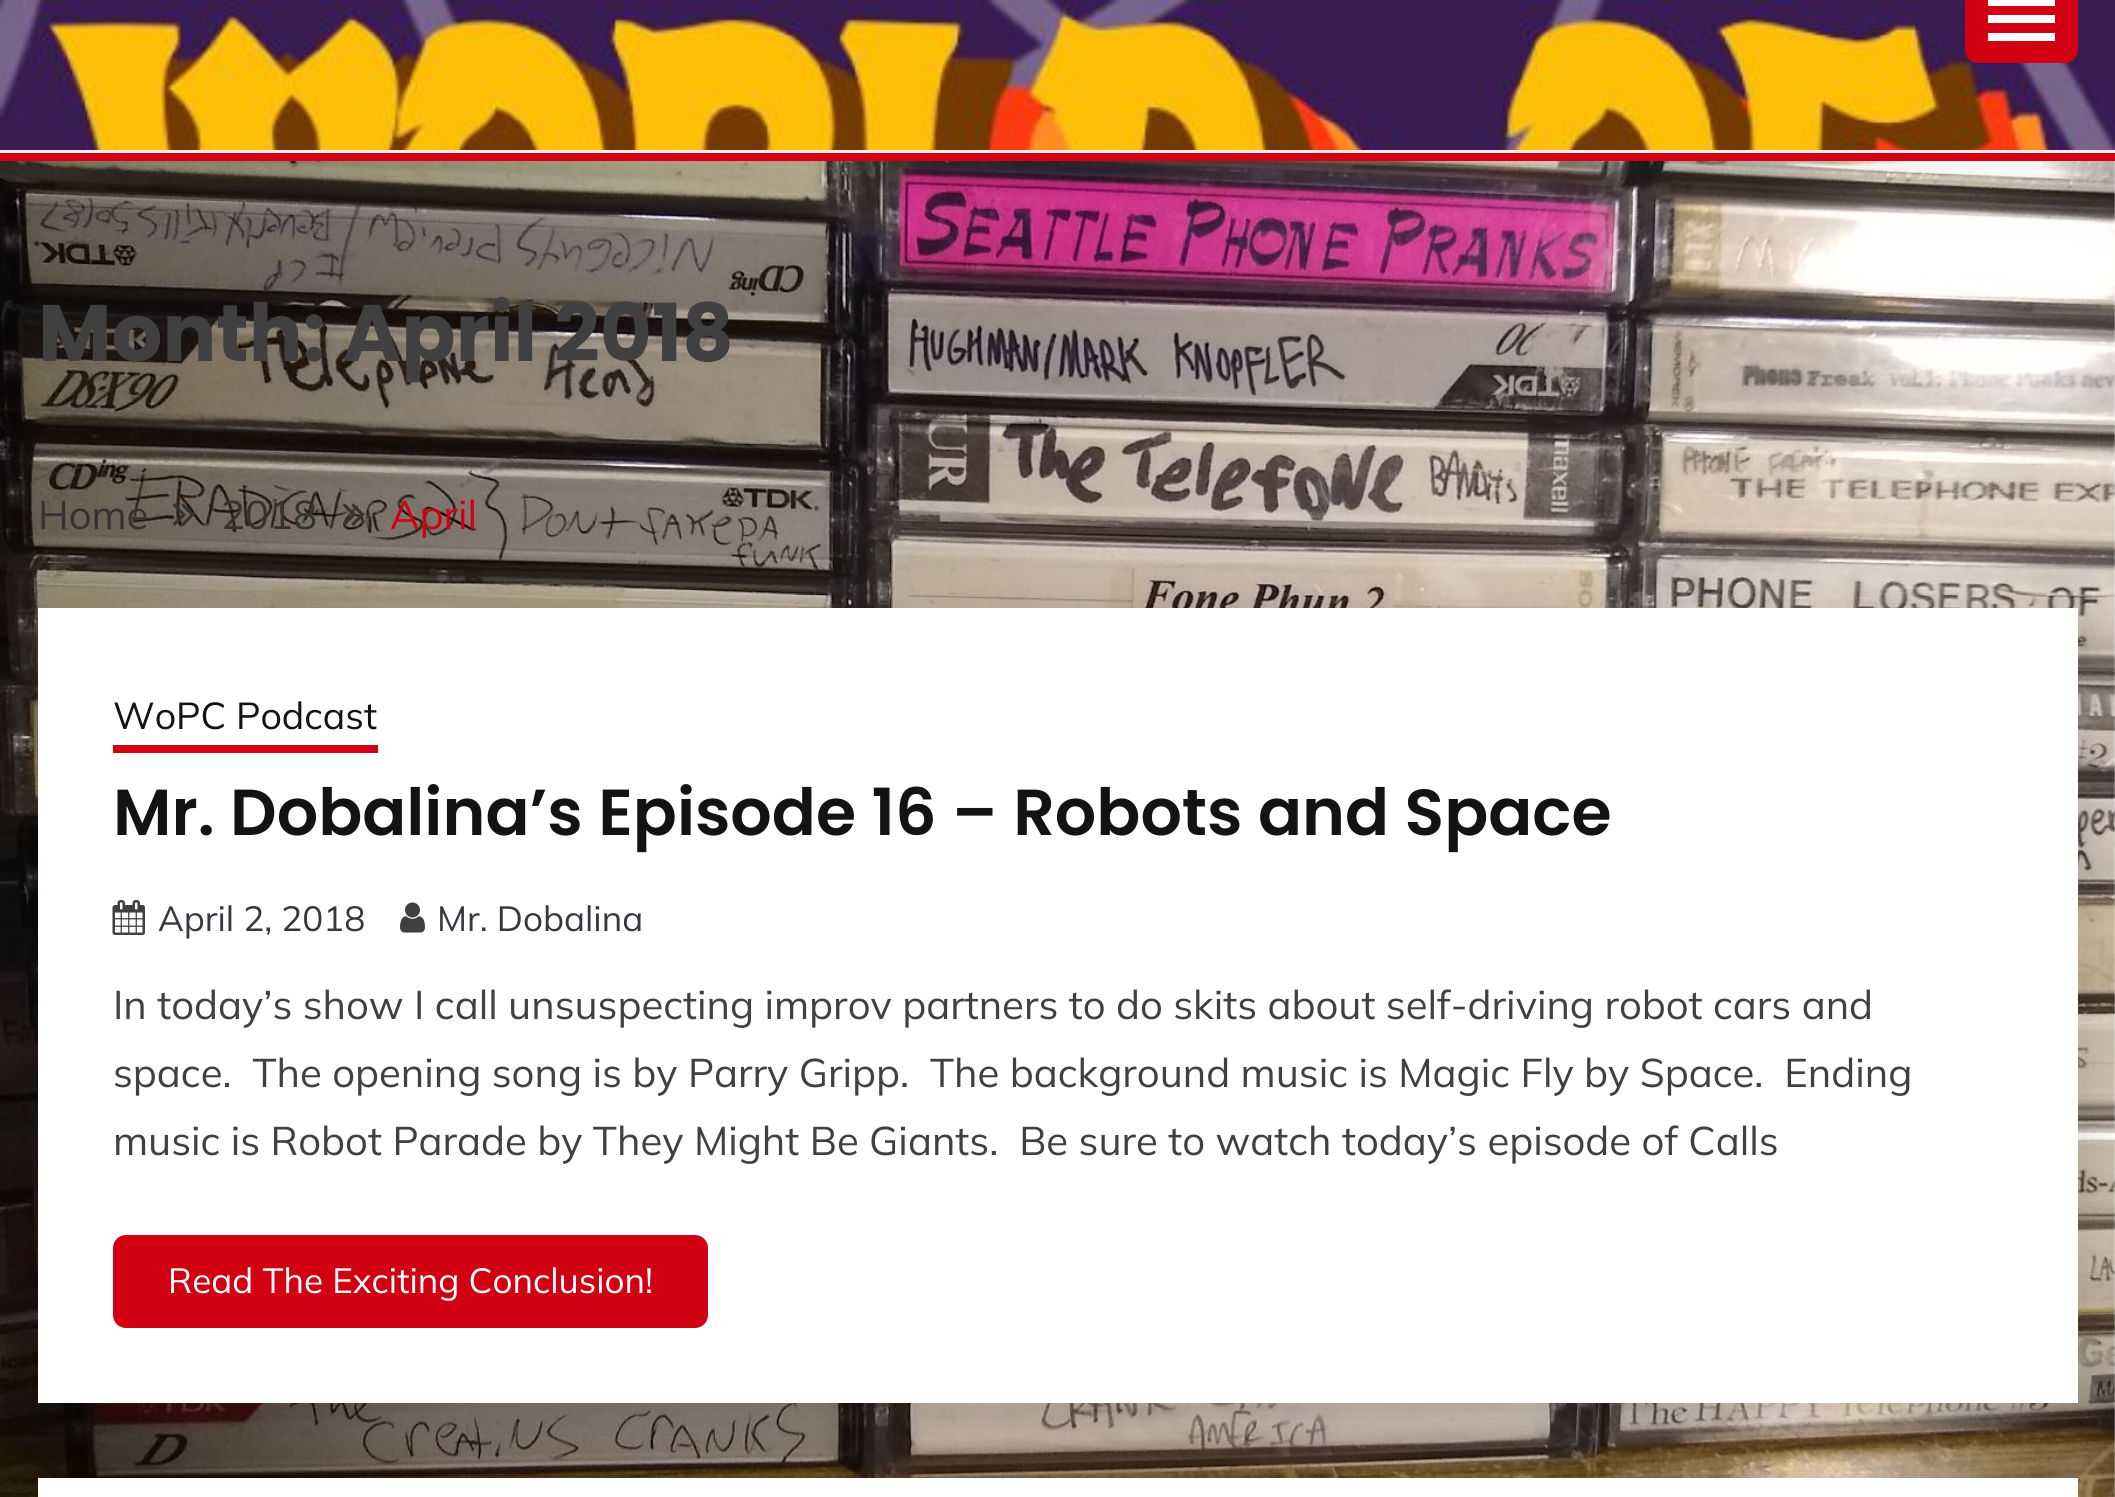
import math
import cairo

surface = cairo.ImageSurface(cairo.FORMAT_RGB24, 2115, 1497)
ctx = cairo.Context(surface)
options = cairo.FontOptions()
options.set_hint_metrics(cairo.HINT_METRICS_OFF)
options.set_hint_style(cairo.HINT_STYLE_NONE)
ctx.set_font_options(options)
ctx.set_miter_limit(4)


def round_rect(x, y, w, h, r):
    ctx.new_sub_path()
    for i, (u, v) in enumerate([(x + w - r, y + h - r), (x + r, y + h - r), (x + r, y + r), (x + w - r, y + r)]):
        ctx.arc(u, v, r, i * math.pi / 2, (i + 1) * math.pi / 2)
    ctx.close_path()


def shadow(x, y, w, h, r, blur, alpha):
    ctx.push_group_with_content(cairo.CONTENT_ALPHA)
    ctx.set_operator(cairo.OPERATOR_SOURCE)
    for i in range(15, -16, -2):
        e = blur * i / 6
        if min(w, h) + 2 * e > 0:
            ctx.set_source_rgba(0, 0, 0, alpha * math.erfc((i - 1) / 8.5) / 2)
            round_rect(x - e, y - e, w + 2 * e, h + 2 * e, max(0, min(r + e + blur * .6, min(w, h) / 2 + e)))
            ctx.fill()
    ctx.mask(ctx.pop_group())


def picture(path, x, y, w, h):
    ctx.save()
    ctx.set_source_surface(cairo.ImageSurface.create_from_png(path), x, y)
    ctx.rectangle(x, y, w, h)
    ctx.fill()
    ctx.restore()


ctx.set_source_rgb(1, 1, 1)
ctx.paint()
picture("img1.png", 0, 161, 2115, 1336)
ctx.set_source_rgb(0, 0, 0)
shadow(0, 13, 2115, 160, 0, 19, 0.04)
picture("img2.png", 0, 0, 2115, 150)
ctx.set_source_rgb(0.933, 0.933, 0.933)
ctx.rectangle(0, 150, 2115, 3)
ctx.fill()
ctx.set_source_rgb(0.82, 0, 0.078)
round_rect(1965, -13, 113, 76, 13)
ctx.fill()
ctx.set_source_rgb(1, 1, 1)
ctx.rectangle(1988, 0, 67, 6)
ctx.fill()
ctx.rectangle(1988, 15, 67, 8)
ctx.fill()
ctx.rectangle(1988, 33, 67, 8)
ctx.fill()
ctx.set_source_rgb(0.82, 0, 0.078)
ctx.rectangle(0, 153, 2115, 8)
ctx.fill()
ctx.select_font_face("Poppins", cairo.FONT_SLANT_NORMAL, cairo.FONT_WEIGHT_BOLD)
ctx.set_font_size(80)
ctx.set_source_rgb(0.251, 0.251, 0.251)
ctx.move_to(38, 361)
ctx.show_text("Month: April 2018")
ctx.select_font_face("Mulish ExtraLight")
ctx.set_font_size(40)
ctx.set_source_rgb(0.2, 0.2, 0.2)
ctx.move_to(38, 529)
ctx.show_text("Home")
picture("img3.png", 172, 503, 23, 23)
ctx.move_to(221, 529)
ctx.show_text("2018")
picture("img4.png", 342, 503, 23, 23)
ctx.set_source_rgb(0.82, 0, 0.078)
ctx.move_to(390, 529)
ctx.show_text("April")
ctx.set_source_rgb(0, 0, 0)
shadow(43, 620, 2040, 795, 0, 25, 0.14)
ctx.set_source_rgb(1, 1, 1)
ctx.rectangle(38, 608, 2040, 795)
ctx.fill()
ctx.set_font_size(37.5)
ctx.set_source_rgb(0.078, 0.078, 0.075)
ctx.move_to(113, 729)
ctx.show_text("WoPC Podcast")
ctx.set_source_rgb(0.82, 0, 0.078)
ctx.rectangle(113, 745, 265, 8)
ctx.fill()
ctx.select_font_face("Poppins SemiBold")
ctx.set_font_size(65)
ctx.set_source_rgb(0.078, 0.078, 0.075)
ctx.move_to(113, 835)
ctx.show_text("Mr. Dobalina’s Episode 16 – Robots and Space")
picture("img5.png", 112, 900, 33, 35)
ctx.select_font_face("Mulish ExtraLight")
ctx.set_font_size(35)
ctx.set_source_rgb(0.216, 0.216, 0.247)
ctx.move_to(158, 931)
ctx.show_text("April 2, 2018")
picture("img6.png", 400, 902, 25, 31)
ctx.move_to(437, 931)
ctx.show_text("Mr. Dobalina")
ctx.set_font_size(40)
ctx.set_source_rgb(0.251, 0.251, 0.251)
ctx.move_to(113, 1019)
ctx.show_text("In today’s show I call unsuspecting improv partners to do skits about self-driving robot cars and")
ctx.move_to(113, 1087)
ctx.show_text("space.  The opening song is by Parry Gripp.  The background music is Magic Fly by Space.  Ending")
ctx.move_to(113, 1155)
ctx.show_text("music is Robot Parade by They Might Be Giants.  Be sure to watch today’s episode of Calls")
ctx.set_source_rgb(0.82, 0, 0.078)
round_rect(113, 1235, 595, 93, 13)
ctx.fill()
ctx.set_font_size(35)
ctx.set_source_rgb(1, 1, 1)
ctx.move_to(168, 1293)
ctx.show_text("Read The Exciting Conclusion!")
ctx.set_source_rgb(0, 0, 0)
shadow(43, 1490, 2040, 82, 0, 25, 0.14)
ctx.set_source_rgb(1, 1, 1)
ctx.rectangle(38, 1478, 2040, 19)
ctx.fill()
surface.write_to_png("page.png")
